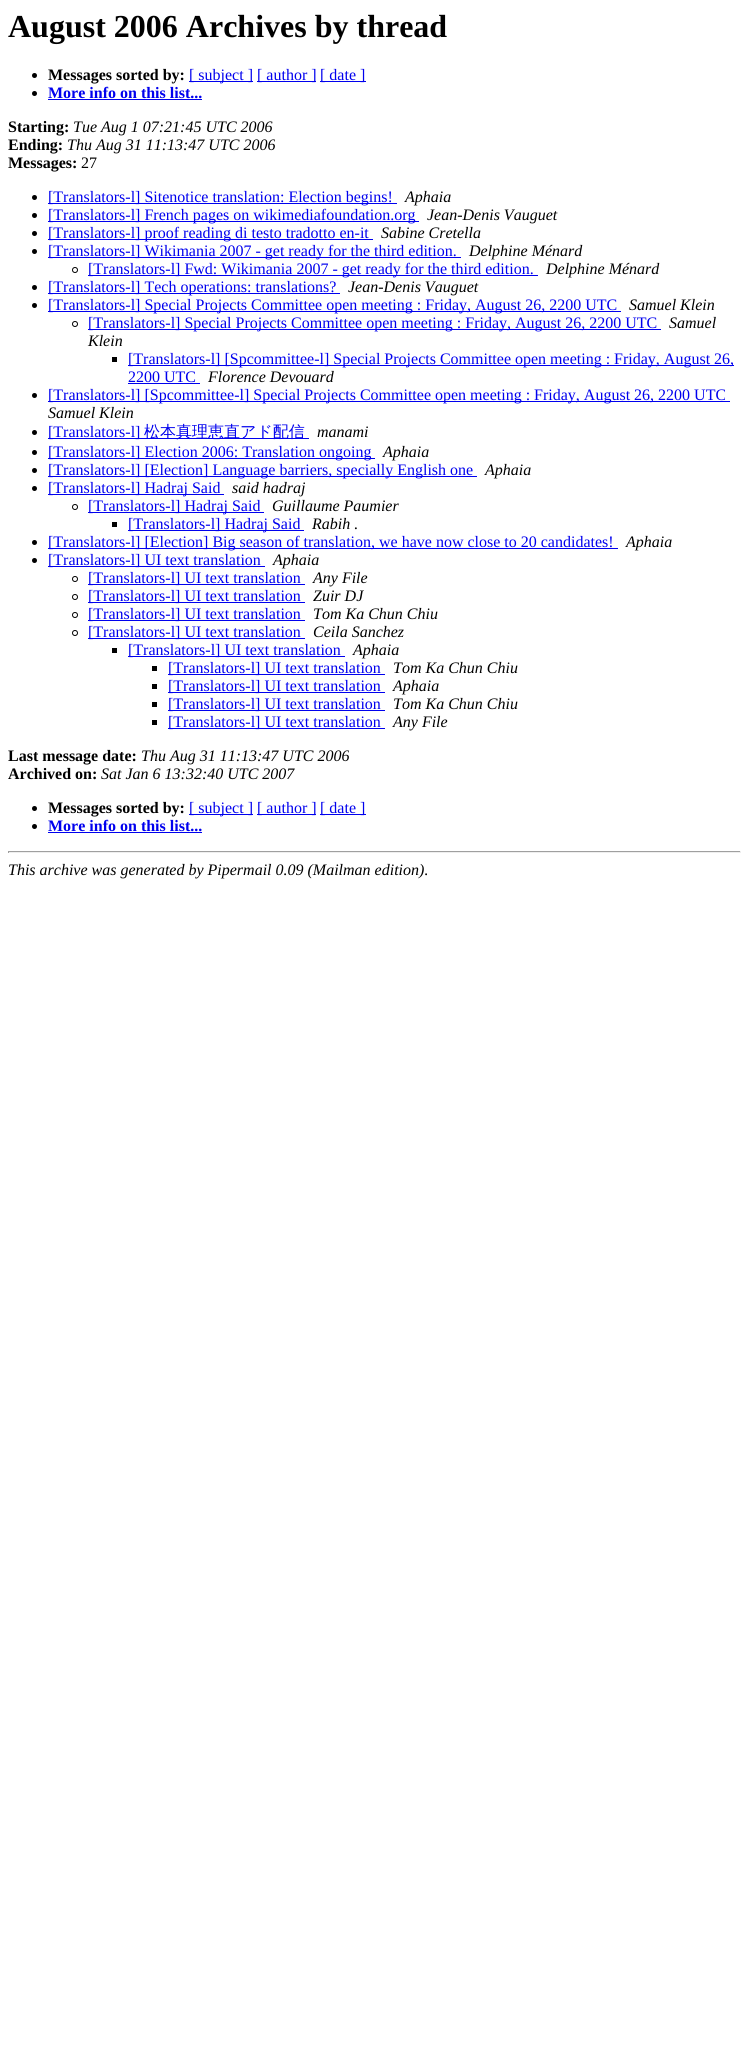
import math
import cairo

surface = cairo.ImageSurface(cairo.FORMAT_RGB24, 749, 2047)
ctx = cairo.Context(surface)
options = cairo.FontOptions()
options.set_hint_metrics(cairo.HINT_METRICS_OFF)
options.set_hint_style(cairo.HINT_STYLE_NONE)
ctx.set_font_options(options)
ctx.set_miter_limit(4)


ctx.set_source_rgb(1, 1, 1)
ctx.paint()
ctx.select_font_face("Liberation Serif", cairo.FONT_SLANT_NORMAL, cairo.FONT_WEIGHT_BOLD)
ctx.set_font_size(32)
ctx.set_source_rgb(0, 0, 0)
ctx.move_to(8, 37)
ctx.show_text("August 2006 Archives by thread")
ctx.new_path()
ctx.arc(34.5, 75.5, 2.5, 0, 2 * math.pi)
ctx.fill()
ctx.set_font_size(16)
ctx.move_to(48, 80)
ctx.show_text("Messages sorted by:")
ctx.set_source_rgb(0, 0, 0.933)
ctx.rectangle(189, 81, 64, 1)
ctx.fill()
ctx.select_font_face("Liberation Serif")
ctx.move_to(189, 80)
ctx.show_text("[ subject ]")
ctx.rectangle(257, 81, 59, 1)
ctx.fill()
ctx.move_to(257, 80)
ctx.show_text("[ author ]")
ctx.rectangle(320, 81, 46, 1)
ctx.fill()
ctx.move_to(320, 80)
ctx.show_text("[ date ]")
ctx.set_source_rgb(0, 0, 0)
ctx.new_path()
ctx.arc(34.5, 93.5, 2.5, 0, 2 * math.pi)
ctx.fill()
ctx.select_font_face("Liberation Serif", cairo.FONT_SLANT_NORMAL, cairo.FONT_WEIGHT_BOLD)
ctx.set_source_rgb(0, 0, 0.933)
ctx.move_to(48, 98)
ctx.show_text("More info on this list...")
ctx.rectangle(48, 99, 154, 1)
ctx.fill()
ctx.set_source_rgb(0, 0, 0)
ctx.move_to(8, 132)
ctx.show_text("Starting:")
ctx.select_font_face("Liberation Serif", cairo.FONT_SLANT_ITALIC)
ctx.move_to(73, 132)
ctx.show_text("Tue Aug 1 07:21:45 UTC 2006")
ctx.select_font_face("Liberation Serif", cairo.FONT_SLANT_NORMAL, cairo.FONT_WEIGHT_BOLD)
ctx.move_to(8, 150)
ctx.show_text("Ending:")
ctx.select_font_face("Liberation Serif", cairo.FONT_SLANT_ITALIC)
ctx.move_to(67, 150)
ctx.show_text("Thu Aug 31 11:13:47 UTC 2006")
ctx.select_font_face("Liberation Serif", cairo.FONT_SLANT_NORMAL, cairo.FONT_WEIGHT_BOLD)
ctx.move_to(8, 168)
ctx.show_text("Messages:")
ctx.select_font_face("Liberation Serif")
ctx.move_to(81, 168)
ctx.show_text("27")
ctx.new_path()
ctx.arc(34.5, 197.5, 2.5, 0, 2 * math.pi)
ctx.fill()
ctx.set_source_rgb(0, 0, 0.933)
ctx.rectangle(48, 203, 349, 1)
ctx.fill()
ctx.move_to(48, 202)
ctx.show_text("[Translators-l] Sitenotice translation: Election begins!")
ctx.select_font_face("Liberation Serif", cairo.FONT_SLANT_ITALIC)
ctx.set_source_rgb(0, 0, 0)
ctx.move_to(405, 202)
ctx.show_text("Aphaia")
ctx.new_path()
ctx.arc(34.5, 215.5, 2.5, 0, 2 * math.pi)
ctx.fill()
ctx.set_source_rgb(0, 0, 0.933)
ctx.rectangle(48, 221, 371, 1)
ctx.fill()
ctx.select_font_face("Liberation Serif")
ctx.move_to(48, 220)
ctx.show_text("[Translators-l] French pages on wikimediafoundation.org")
ctx.select_font_face("Liberation Serif", cairo.FONT_SLANT_ITALIC)
ctx.set_source_rgb(0, 0, 0)
ctx.move_to(427, 220)
ctx.show_text("Jean-Denis Vauguet")
ctx.new_path()
ctx.arc(34.5, 233.5, 2.5, 0, 2 * math.pi)
ctx.fill()
ctx.set_source_rgb(0, 0, 0.933)
ctx.rectangle(48, 239, 325, 1)
ctx.fill()
ctx.select_font_face("Liberation Serif")
ctx.move_to(48, 238)
ctx.show_text("[Translators-l] proof reading di testo tradotto en-it")
ctx.select_font_face("Liberation Serif", cairo.FONT_SLANT_ITALIC)
ctx.set_source_rgb(0, 0, 0)
ctx.move_to(381, 238)
ctx.show_text("Sabine Cretella")
ctx.new_path()
ctx.arc(34.5, 251.5, 2.5, 0, 2 * math.pi)
ctx.fill()
ctx.set_source_rgb(0, 0, 0.933)
ctx.rectangle(48, 257, 413, 1)
ctx.fill()
ctx.select_font_face("Liberation Serif")
ctx.move_to(48, 256)
ctx.show_text("[Translators-l] Wikimania 2007 - get ready for the third edition.")
ctx.select_font_face("Liberation Serif", cairo.FONT_SLANT_ITALIC)
ctx.set_source_rgb(0, 0, 0)
ctx.move_to(469, 256)
ctx.show_text("Delphine Ménard")
ctx.new_path()
ctx.arc(75, 270, 2.5, 0, 2 * math.pi)
ctx.set_line_width(1)
ctx.stroke()
ctx.set_source_rgb(0, 0, 0.933)
ctx.rectangle(88, 275, 450, 1)
ctx.fill()
ctx.select_font_face("Liberation Serif")
ctx.move_to(88, 274)
ctx.show_text("[Translators-l] Fwd: Wikimania 2007 - get ready for the third edition.")
ctx.select_font_face("Liberation Serif", cairo.FONT_SLANT_ITALIC)
ctx.set_source_rgb(0, 0, 0)
ctx.move_to(546, 274)
ctx.show_text("Delphine Ménard")
ctx.new_path()
ctx.arc(34.5, 287.5, 2.5, 0, 2 * math.pi)
ctx.fill()
ctx.set_source_rgb(0, 0, 0.933)
ctx.rectangle(48, 293, 292, 1)
ctx.fill()
ctx.select_font_face("Liberation Serif")
ctx.move_to(48, 292)
ctx.show_text("[Translators-l] Tech operations: translations?")
ctx.select_font_face("Liberation Serif", cairo.FONT_SLANT_ITALIC)
ctx.set_source_rgb(0, 0, 0)
ctx.move_to(348, 292)
ctx.show_text("Jean-Denis Vauguet")
ctx.new_path()
ctx.arc(34.5, 305.5, 2.5, 0, 2 * math.pi)
ctx.fill()
ctx.set_source_rgb(0, 0, 0.933)
ctx.rectangle(48, 311, 573, 1)
ctx.fill()
ctx.select_font_face("Liberation Serif")
ctx.move_to(48, 310)
ctx.show_text("[Translators-l] Special Projects Committee open meeting : Friday, August 26, 2200 UTC")
ctx.select_font_face("Liberation Serif", cairo.FONT_SLANT_ITALIC)
ctx.set_source_rgb(0, 0, 0)
ctx.move_to(629, 310)
ctx.show_text("Samuel Klein")
ctx.new_path()
ctx.arc(75, 324, 2.5, 0, 2 * math.pi)
ctx.stroke()
ctx.set_source_rgb(0, 0, 0.933)
ctx.rectangle(88, 329, 573, 1)
ctx.fill()
ctx.select_font_face("Liberation Serif")
ctx.move_to(88, 328)
ctx.show_text("[Translators-l] Special Projects Committee open meeting : Friday, August 26, 2200 UTC")
ctx.select_font_face("Liberation Serif", cairo.FONT_SLANT_ITALIC)
ctx.set_source_rgb(0, 0, 0)
ctx.move_to(669, 328)
ctx.show_text("Samuel")
ctx.move_to(88, 346)
ctx.show_text("Klein")
ctx.rectangle(112, 357, 5, 5)
ctx.fill()
ctx.set_source_rgb(0, 0, 0.933)
ctx.rectangle(128, 365, 606, 1)
ctx.fill()
ctx.select_font_face("Liberation Serif")
ctx.move_to(128, 364)
ctx.show_text("[Translators-l] [Spcommittee-l] Special Projects Committee open meeting : Friday, August 26,")
ctx.move_to(128, 382)
ctx.show_text("2200 UTC")
ctx.rectangle(128, 383, 72, 1)
ctx.fill()
ctx.select_font_face("Liberation Serif", cairo.FONT_SLANT_ITALIC)
ctx.set_source_rgb(0, 0, 0)
ctx.move_to(208, 382)
ctx.show_text("Florence Devouard")
ctx.new_path()
ctx.arc(34.5, 395.5, 2.5, 0, 2 * math.pi)
ctx.fill()
ctx.set_source_rgb(0, 0, 0.933)
ctx.rectangle(48, 401, 682, 1)
ctx.fill()
ctx.select_font_face("Liberation Serif")
ctx.move_to(48, 400)
ctx.show_text("[Translators-l] [Spcommittee-l] Special Projects Committee open meeting : Friday, August 26, 2200 UTC")
ctx.select_font_face("Liberation Serif", cairo.FONT_SLANT_ITALIC)
ctx.set_source_rgb(0, 0, 0)
ctx.move_to(48, 418)
ctx.show_text("Samuel Klein")
ctx.new_path()
ctx.arc(34.5, 432.5, 2.5, 0, 2 * math.pi)
ctx.fill()
ctx.set_source_rgb(0, 0, 0.933)
ctx.rectangle(48, 438, 261, 1)
ctx.fill()
ctx.select_font_face("Liberation Serif")
ctx.move_to(48, 437)
ctx.show_text("[Translators-l]")
ctx.select_font_face("WenQuanYi Zen Hei Medium")
ctx.move_to(144, 437)
ctx.show_text("松本真理恵直アド配信")
ctx.select_font_face("Liberation Serif", cairo.FONT_SLANT_ITALIC)
ctx.set_source_rgb(0, 0, 0)
ctx.move_to(317, 437)
ctx.show_text("manami")
ctx.new_path()
ctx.arc(34.5, 452.5, 2.5, 0, 2 * math.pi)
ctx.fill()
ctx.set_source_rgb(0, 0, 0.933)
ctx.rectangle(48, 458, 327, 1)
ctx.fill()
ctx.select_font_face("Liberation Serif")
ctx.move_to(48, 457)
ctx.show_text("[Translators-l] Election 2006: Translation ongoing")
ctx.select_font_face("Liberation Serif", cairo.FONT_SLANT_ITALIC)
ctx.set_source_rgb(0, 0, 0)
ctx.move_to(383, 457)
ctx.show_text("Aphaia")
ctx.new_path()
ctx.arc(34.5, 470.5, 2.5, 0, 2 * math.pi)
ctx.fill()
ctx.set_source_rgb(0, 0, 0.933)
ctx.rectangle(48, 476, 429, 1)
ctx.fill()
ctx.select_font_face("Liberation Serif")
ctx.move_to(48, 475)
ctx.show_text("[Translators-l] [Election] Language barriers, specially English one")
ctx.select_font_face("Liberation Serif", cairo.FONT_SLANT_ITALIC)
ctx.set_source_rgb(0, 0, 0)
ctx.move_to(485, 475)
ctx.show_text("Aphaia")
ctx.new_path()
ctx.arc(34.5, 488.5, 2.5, 0, 2 * math.pi)
ctx.fill()
ctx.set_source_rgb(0, 0, 0.933)
ctx.rectangle(48, 494, 176, 1)
ctx.fill()
ctx.select_font_face("Liberation Serif")
ctx.move_to(48, 493)
ctx.show_text("[Translators-l] Hadraj Said")
ctx.select_font_face("Liberation Serif", cairo.FONT_SLANT_ITALIC)
ctx.set_source_rgb(0, 0, 0)
ctx.move_to(232, 493)
ctx.show_text("said hadraj")
ctx.new_path()
ctx.arc(75, 507, 2.5, 0, 2 * math.pi)
ctx.stroke()
ctx.set_source_rgb(0, 0, 0.933)
ctx.rectangle(88, 512, 176, 1)
ctx.fill()
ctx.select_font_face("Liberation Serif")
ctx.move_to(88, 511)
ctx.show_text("[Translators-l] Hadraj Said")
ctx.select_font_face("Liberation Serif", cairo.FONT_SLANT_ITALIC)
ctx.set_source_rgb(0, 0, 0)
ctx.move_to(272, 511)
ctx.show_text("Guillaume Paumier")
ctx.rectangle(112, 522, 5, 5)
ctx.fill()
ctx.set_source_rgb(0, 0, 0.933)
ctx.rectangle(128, 530, 176, 1)
ctx.fill()
ctx.select_font_face("Liberation Serif")
ctx.move_to(128, 529)
ctx.show_text("[Translators-l] Hadraj Said")
ctx.select_font_face("Liberation Serif", cairo.FONT_SLANT_ITALIC)
ctx.set_source_rgb(0, 0, 0)
ctx.move_to(312, 529)
ctx.show_text("Rabih .")
ctx.new_path()
ctx.arc(34.5, 542.5, 2.5, 0, 2 * math.pi)
ctx.fill()
ctx.set_source_rgb(0, 0, 0.933)
ctx.rectangle(48, 548, 570, 1)
ctx.fill()
ctx.select_font_face("Liberation Serif")
ctx.move_to(48, 547)
ctx.show_text("[Translators-l] [Election] Big season of translation, we have now close to 20 candidates!")
ctx.select_font_face("Liberation Serif", cairo.FONT_SLANT_ITALIC)
ctx.set_source_rgb(0, 0, 0)
ctx.move_to(626, 547)
ctx.show_text("Aphaia")
ctx.new_path()
ctx.arc(34.5, 560.5, 2.5, 0, 2 * math.pi)
ctx.fill()
ctx.set_source_rgb(0, 0, 0.933)
ctx.rectangle(48, 566, 217, 1)
ctx.fill()
ctx.select_font_face("Liberation Serif")
ctx.move_to(48, 565)
ctx.show_text("[Translators-l] UI text translation")
ctx.select_font_face("Liberation Serif", cairo.FONT_SLANT_ITALIC)
ctx.set_source_rgb(0, 0, 0)
ctx.move_to(273, 565)
ctx.show_text("Aphaia")
ctx.new_path()
ctx.arc(75, 579, 2.5, 0, 2 * math.pi)
ctx.stroke()
ctx.set_source_rgb(0, 0, 0.933)
ctx.rectangle(88, 584, 217, 1)
ctx.fill()
ctx.select_font_face("Liberation Serif")
ctx.move_to(88, 583)
ctx.show_text("[Translators-l] UI text translation")
ctx.select_font_face("Liberation Serif", cairo.FONT_SLANT_ITALIC)
ctx.set_source_rgb(0, 0, 0)
ctx.move_to(313, 583)
ctx.show_text("Any File")
ctx.new_path()
ctx.arc(75, 597, 2.5, 0, 2 * math.pi)
ctx.stroke()
ctx.set_source_rgb(0, 0, 0.933)
ctx.rectangle(88, 602, 217, 1)
ctx.fill()
ctx.select_font_face("Liberation Serif")
ctx.move_to(88, 601)
ctx.show_text("[Translators-l] UI text translation")
ctx.select_font_face("Liberation Serif", cairo.FONT_SLANT_ITALIC)
ctx.set_source_rgb(0, 0, 0)
ctx.move_to(313, 601)
ctx.show_text("Zuir DJ")
ctx.new_path()
ctx.arc(75, 615, 2.5, 0, 2 * math.pi)
ctx.stroke()
ctx.set_source_rgb(0, 0, 0.933)
ctx.rectangle(88, 620, 217, 1)
ctx.fill()
ctx.select_font_face("Liberation Serif")
ctx.move_to(88, 619)
ctx.show_text("[Translators-l] UI text translation")
ctx.select_font_face("Liberation Serif", cairo.FONT_SLANT_ITALIC)
ctx.set_source_rgb(0, 0, 0)
ctx.move_to(313, 619)
ctx.show_text("Tom Ka Chun Chiu")
ctx.new_path()
ctx.arc(75, 633, 2.5, 0, 2 * math.pi)
ctx.stroke()
ctx.set_source_rgb(0, 0, 0.933)
ctx.rectangle(88, 638, 217, 1)
ctx.fill()
ctx.select_font_face("Liberation Serif")
ctx.move_to(88, 637)
ctx.show_text("[Translators-l] UI text translation")
ctx.select_font_face("Liberation Serif", cairo.FONT_SLANT_ITALIC)
ctx.set_source_rgb(0, 0, 0)
ctx.move_to(313, 637)
ctx.show_text("Ceila Sanchez")
ctx.rectangle(112, 648, 5, 5)
ctx.fill()
ctx.set_source_rgb(0, 0, 0.933)
ctx.rectangle(128, 656, 217, 1)
ctx.fill()
ctx.select_font_face("Liberation Serif")
ctx.move_to(128, 655)
ctx.show_text("[Translators-l] UI text translation")
ctx.select_font_face("Liberation Serif", cairo.FONT_SLANT_ITALIC)
ctx.set_source_rgb(0, 0, 0)
ctx.move_to(353, 655)
ctx.show_text("Aphaia")
ctx.rectangle(152, 666, 5, 5)
ctx.fill()
ctx.set_source_rgb(0, 0, 0.933)
ctx.rectangle(168, 674, 217, 1)
ctx.fill()
ctx.select_font_face("Liberation Serif")
ctx.move_to(168, 673)
ctx.show_text("[Translators-l] UI text translation")
ctx.select_font_face("Liberation Serif", cairo.FONT_SLANT_ITALIC)
ctx.set_source_rgb(0, 0, 0)
ctx.move_to(393, 673)
ctx.show_text("Tom Ka Chun Chiu")
ctx.rectangle(152, 684, 5, 5)
ctx.fill()
ctx.set_source_rgb(0, 0, 0.933)
ctx.rectangle(168, 692, 217, 1)
ctx.fill()
ctx.select_font_face("Liberation Serif")
ctx.move_to(168, 691)
ctx.show_text("[Translators-l] UI text translation")
ctx.select_font_face("Liberation Serif", cairo.FONT_SLANT_ITALIC)
ctx.set_source_rgb(0, 0, 0)
ctx.move_to(393, 691)
ctx.show_text("Aphaia")
ctx.rectangle(152, 702, 5, 5)
ctx.fill()
ctx.set_source_rgb(0, 0, 0.933)
ctx.rectangle(168, 710, 217, 1)
ctx.fill()
ctx.select_font_face("Liberation Serif")
ctx.move_to(168, 709)
ctx.show_text("[Translators-l] UI text translation")
ctx.select_font_face("Liberation Serif", cairo.FONT_SLANT_ITALIC)
ctx.set_source_rgb(0, 0, 0)
ctx.move_to(393, 709)
ctx.show_text("Tom Ka Chun Chiu")
ctx.rectangle(152, 720, 5, 5)
ctx.fill()
ctx.set_source_rgb(0, 0, 0.933)
ctx.rectangle(168, 728, 217, 1)
ctx.fill()
ctx.select_font_face("Liberation Serif")
ctx.move_to(168, 727)
ctx.show_text("[Translators-l] UI text translation")
ctx.select_font_face("Liberation Serif", cairo.FONT_SLANT_ITALIC)
ctx.set_source_rgb(0, 0, 0)
ctx.move_to(393, 727)
ctx.show_text("Any File")
ctx.select_font_face("Liberation Serif", cairo.FONT_SLANT_NORMAL, cairo.FONT_WEIGHT_BOLD)
ctx.move_to(8, 761)
ctx.show_text("Last message date:")
ctx.select_font_face("Liberation Serif", cairo.FONT_SLANT_ITALIC)
ctx.move_to(141, 761)
ctx.show_text("Thu Aug 31 11:13:47 UTC 2006")
ctx.select_font_face("Liberation Serif", cairo.FONT_SLANT_NORMAL, cairo.FONT_WEIGHT_BOLD)
ctx.move_to(8, 779)
ctx.show_text("Archived on:")
ctx.select_font_face("Liberation Serif", cairo.FONT_SLANT_ITALIC)
ctx.move_to(101, 779)
ctx.show_text("Sat Jan 6 13:32:40 UTC 2007")
ctx.new_path()
ctx.arc(34.5, 808.5, 2.5, 0, 2 * math.pi)
ctx.fill()
ctx.select_font_face("Liberation Serif", cairo.FONT_SLANT_NORMAL, cairo.FONT_WEIGHT_BOLD)
ctx.move_to(48, 813)
ctx.show_text("Messages sorted by:")
ctx.set_source_rgb(0, 0, 0.933)
ctx.rectangle(189, 814, 64, 1)
ctx.fill()
ctx.select_font_face("Liberation Serif")
ctx.move_to(189, 813)
ctx.show_text("[ subject ]")
ctx.rectangle(257, 814, 59, 1)
ctx.fill()
ctx.move_to(257, 813)
ctx.show_text("[ author ]")
ctx.rectangle(320, 814, 46, 1)
ctx.fill()
ctx.move_to(320, 813)
ctx.show_text("[ date ]")
ctx.set_source_rgb(0, 0, 0)
ctx.new_path()
ctx.arc(34.5, 826.5, 2.5, 0, 2 * math.pi)
ctx.fill()
ctx.select_font_face("Liberation Serif", cairo.FONT_SLANT_NORMAL, cairo.FONT_WEIGHT_BOLD)
ctx.set_source_rgb(0, 0, 0.933)
ctx.move_to(48, 831)
ctx.show_text("More info on this list...")
ctx.rectangle(48, 832, 154, 1)
ctx.fill()
ctx.set_source_rgb(0.624, 0.624, 0.624)
ctx.rectangle(8, 851, 733, 1)
ctx.fill()
ctx.set_source_rgb(0.933, 0.933, 0.933)
ctx.rectangle(740, 851, 1, 2)
ctx.fill()
ctx.rectangle(8, 852, 733, 1)
ctx.fill()
ctx.set_source_rgb(0.624, 0.624, 0.624)
ctx.rectangle(8, 851, 1, 2)
ctx.fill()
ctx.select_font_face("Liberation Serif", cairo.FONT_SLANT_ITALIC)
ctx.set_source_rgb(0, 0, 0)
ctx.move_to(8, 875)
ctx.show_text("This archive was generated by Pipermail 0.09 (Mailman edition).")
surface.write_to_png("page.png")
